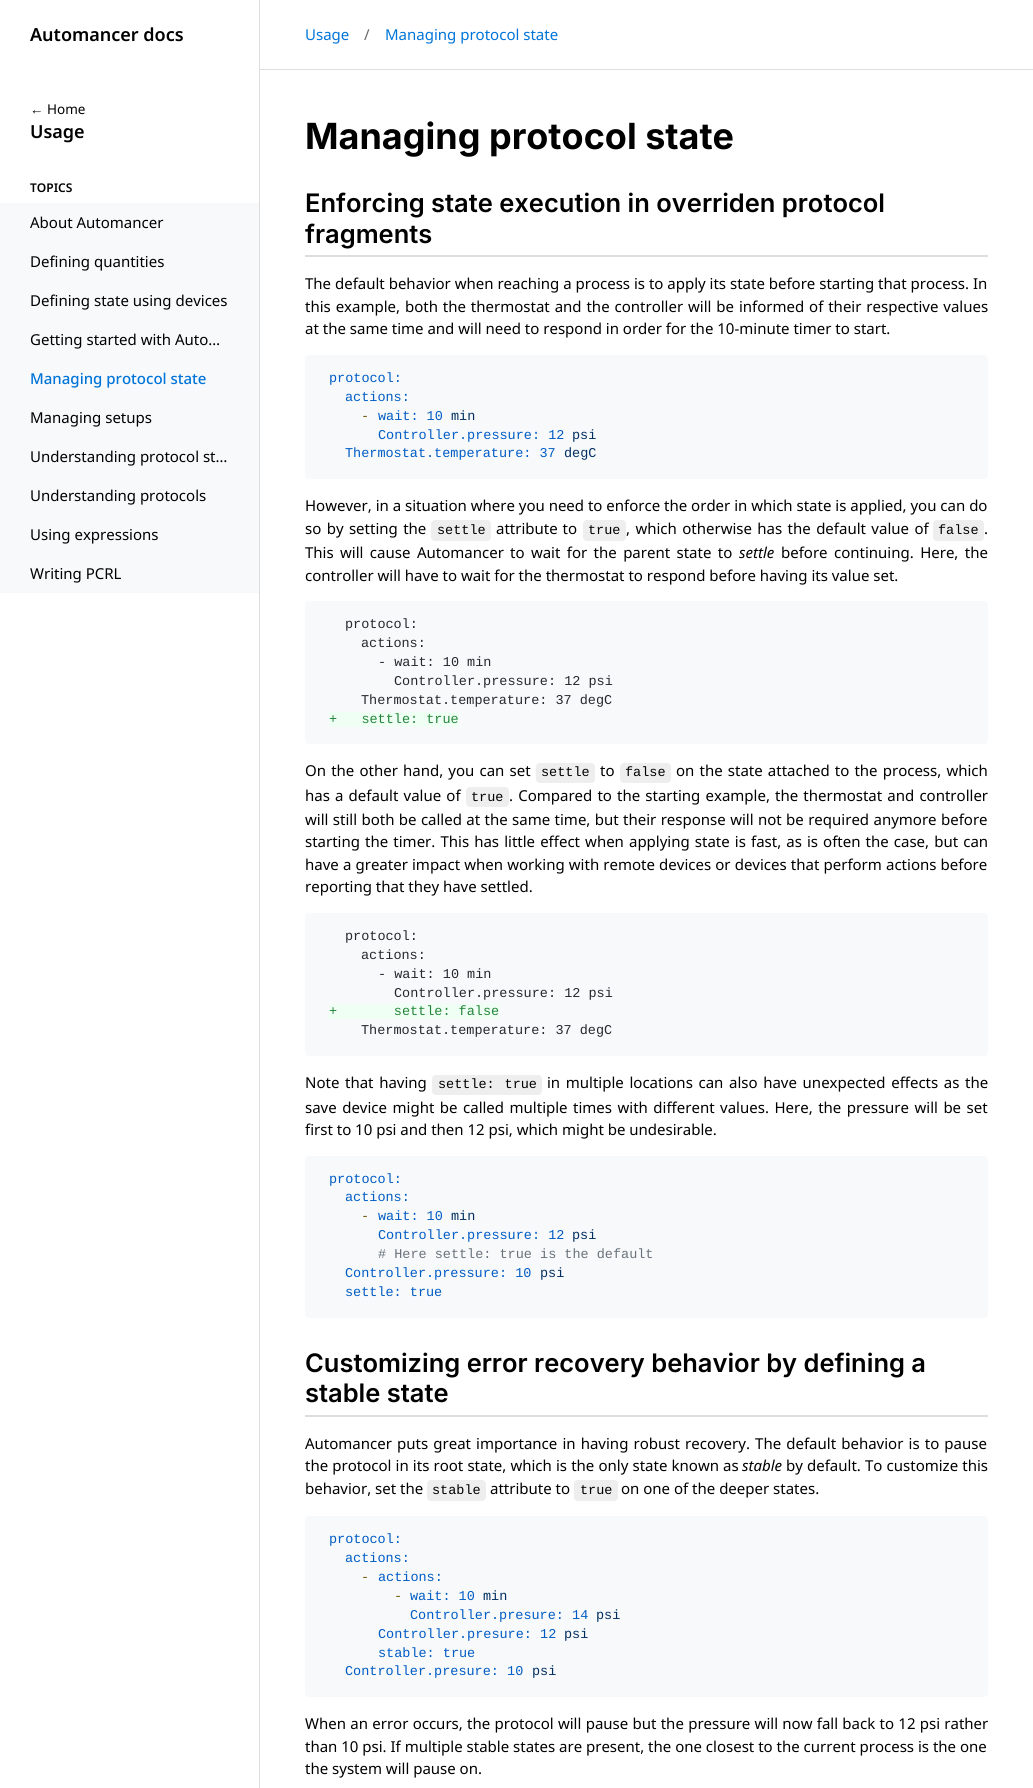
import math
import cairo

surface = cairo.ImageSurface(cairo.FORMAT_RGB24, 1033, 1788)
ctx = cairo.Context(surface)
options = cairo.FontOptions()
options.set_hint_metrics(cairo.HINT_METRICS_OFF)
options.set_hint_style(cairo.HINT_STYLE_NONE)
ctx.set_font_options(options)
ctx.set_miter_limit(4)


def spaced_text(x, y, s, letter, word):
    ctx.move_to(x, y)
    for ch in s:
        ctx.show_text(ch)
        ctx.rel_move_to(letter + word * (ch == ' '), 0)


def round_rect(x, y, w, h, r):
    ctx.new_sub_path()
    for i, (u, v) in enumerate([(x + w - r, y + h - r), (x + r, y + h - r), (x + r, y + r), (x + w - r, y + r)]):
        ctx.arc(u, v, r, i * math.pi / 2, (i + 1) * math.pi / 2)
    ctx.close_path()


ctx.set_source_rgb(1, 1, 1)
ctx.paint()
ctx.set_source_rgb(0.867, 0.867, 0.867)
ctx.rectangle(259, 0, 1, 1788)
ctx.fill()
ctx.select_font_face("Noto Sans SemiBold")
ctx.set_font_size(18)
ctx.set_source_rgb(0, 0, 0)
ctx.move_to(30, 41)
ctx.show_text("Automancer docs")
ctx.set_source_rgb(0.867, 0.867, 0.867)
ctx.rectangle(260, 69, 773, 1)
ctx.fill()
ctx.select_font_face("Noto Sans")
ctx.set_font_size(15)
ctx.set_source_rgb(0, 0.455, 0.851)
ctx.move_to(305, 40)
ctx.show_text("Usage")
ctx.set_source_rgb(0.4, 0.4, 0.4)
ctx.move_to(364, 40)
ctx.show_text("/")
ctx.set_source_rgb(0, 0.455, 0.851)
ctx.move_to(385, 40)
ctx.show_text("Managing protocol state")
ctx.select_font_face("Liberation Serif")
ctx.set_font_size(13.5)
ctx.set_source_rgb(0, 0, 0)
ctx.move_to(30, 114)
ctx.show_text("←")
ctx.select_font_face("Noto Sans")
ctx.move_to(47, 114)
ctx.show_text("Home")
ctx.select_font_face("Noto Sans SemiBold")
ctx.set_font_size(18)
ctx.move_to(30, 138)
ctx.show_text("Usage")
ctx.set_font_size(12)
ctx.move_to(30, 192)
ctx.show_text("TOPICS")
ctx.set_source_rgb(0.965, 0.973, 0.98)
ctx.rectangle(0, 203, 259, 390)
ctx.fill()
ctx.select_font_face("Noto Sans")
ctx.set_font_size(15)
ctx.set_source_rgb(0, 0, 0)
ctx.move_to(30, 228)
ctx.show_text("About Automancer")
ctx.move_to(30, 267)
ctx.show_text("Defining quantities")
ctx.move_to(30, 306)
ctx.show_text("Defining state using devices")
ctx.move_to(30, 345)
ctx.show_text("Getting started with Auto…")
ctx.select_font_face("Noto Sans Medium")
ctx.set_source_rgb(0, 0.455, 0.851)
ctx.move_to(30, 384)
ctx.show_text("Managing protocol state")
ctx.select_font_face("Noto Sans")
ctx.set_source_rgb(0, 0, 0)
ctx.move_to(30, 423)
ctx.show_text("Managing setups")
ctx.move_to(30, 462)
ctx.show_text("Understanding protocol st…")
ctx.move_to(30, 501)
ctx.show_text("Understanding protocols")
ctx.move_to(30, 540)
ctx.show_text("Using expressions")
ctx.move_to(30, 579)
ctx.show_text("Writing PCRL")
ctx.select_font_face("Inter", cairo.FONT_SLANT_NORMAL, cairo.FONT_WEIGHT_BOLD)
ctx.set_font_size(36)
ctx.move_to(305, 149)
ctx.show_text("Managing protocol state")
ctx.set_source_rgb(0.867, 0.867, 0.867)
ctx.rectangle(305, 255, 683, 2)
ctx.fill()
ctx.select_font_face("Inter SemiBold")
ctx.set_font_size(25.5)
ctx.set_source_rgb(0, 0, 0)
ctx.move_to(305, 212)
ctx.show_text("Enforcing state execution in overriden protocol")
ctx.move_to(305, 243)
ctx.show_text("fragments")
ctx.select_font_face("Noto Sans")
ctx.set_font_size(15)
ctx.move_to(305, 289)
ctx.show_text("The default behavior when reaching a process is to apply its state before starting that process. In")
spaced_text(305, 312, "this example, both the thermostat and the controller will be informed of their respective values", 0, 1)
ctx.move_to(305, 334)
ctx.show_text("at the same time and will need to respond in order for the 10-minute timer to start.")
ctx.set_source_rgb(0.965, 0.973, 0.98)
round_rect(305, 355, 683, 124, 4)
ctx.fill()
ctx.select_font_face("Liberation Mono")
ctx.set_font_size(13.5)
ctx.set_source_rgb(0, 0.361, 0.773)
ctx.move_to(329, 382)
ctx.show_text("protocol:")
ctx.move_to(345, 401)
ctx.show_text("actions:")
ctx.set_source_rgb(0.451, 0.361, 0.059)
ctx.move_to(361, 420)
ctx.show_text("-")
ctx.set_source_rgb(0, 0.361, 0.773)
ctx.move_to(378, 420)
ctx.show_text("wait: 10")
ctx.set_source_rgb(0.012, 0.184, 0.384)
ctx.move_to(451, 420)
ctx.show_text("min")
ctx.set_source_rgb(0, 0.361, 0.773)
ctx.move_to(378, 439)
ctx.show_text("Controller.pressure: 12")
ctx.set_source_rgb(0.012, 0.184, 0.384)
ctx.move_to(572, 439)
ctx.show_text("psi")
ctx.set_source_rgb(0, 0.361, 0.773)
ctx.move_to(345, 457)
ctx.show_text("Thermostat.temperature: 37")
ctx.set_source_rgb(0.012, 0.184, 0.384)
ctx.move_to(564, 457)
ctx.show_text("degC")
ctx.select_font_face("Noto Sans")
ctx.set_font_size(15)
ctx.set_source_rgb(0, 0, 0)
ctx.move_to(305, 511)
ctx.show_text("However, in a situation where you need to enforce the order in which state is applied, you can do")
spaced_text(305, 534, "so by setting the", 0, 1.5)
ctx.set_source_rgb(0.933, 0.933, 0.933)
round_rect(431, 520, 60, 21, 4)
ctx.fill()
ctx.select_font_face("Liberation Mono")
ctx.set_font_size(13.5)
ctx.set_source_rgb(0, 0, 0)
ctx.move_to(437, 534)
ctx.show_text("settle")
ctx.select_font_face("Noto Sans")
ctx.set_font_size(15)
spaced_text(496, 534, "attribute to", 0, 1)
ctx.set_source_rgb(0.933, 0.933, 0.933)
round_rect(583, 520, 43, 21, 4)
ctx.fill()
ctx.select_font_face("Liberation Mono")
ctx.set_font_size(13.5)
ctx.set_source_rgb(0, 0, 0)
ctx.move_to(588, 534)
ctx.show_text("true")
ctx.select_font_face("Noto Sans")
ctx.set_font_size(15)
spaced_text(626, 534, ", which otherwise has the default value of", 0, 1.5)
ctx.set_source_rgb(0.933, 0.933, 0.933)
round_rect(933, 520, 51, 21, 4)
ctx.fill()
ctx.select_font_face("Liberation Mono")
ctx.set_font_size(13.5)
ctx.set_source_rgb(0, 0, 0)
ctx.move_to(938, 534)
ctx.show_text("false")
ctx.select_font_face("Noto Sans")
ctx.set_font_size(15)
ctx.move_to(984, 534)
ctx.show_text(".")
spaced_text(305, 558, "This will cause", 0, 2.5)
ctx.move_to(417, 558)
ctx.show_text("Automancer")
spaced_text(510, 558, "to wait for the parent state to", 0, 2.5)
ctx.select_font_face("Noto Sans", cairo.FONT_SLANT_ITALIC)
ctx.move_to(739, 558)
ctx.show_text("settle")
ctx.select_font_face("Noto Sans")
spaced_text(781, 558, "before continuing. Here, the", 0, 2.5)
ctx.move_to(305, 581)
ctx.show_text("controller will have to wait for the thermostat to respond before having its value set.")
ctx.set_source_rgb(0.965, 0.973, 0.98)
round_rect(305, 601, 683, 143, 4)
ctx.fill()
ctx.select_font_face("Liberation Mono")
ctx.set_font_size(13.5)
ctx.set_source_rgb(0.141, 0.161, 0.18)
ctx.move_to(345, 628)
ctx.show_text("protocol:")
ctx.move_to(361, 647)
ctx.show_text("actions:")
ctx.move_to(378, 666)
ctx.show_text("- wait: 10 min")
ctx.move_to(394, 685)
ctx.show_text("Controller.pressure: 12 psi")
ctx.move_to(361, 704)
ctx.show_text("Thermostat.temperature: 37 degC")
ctx.set_source_rgb(0.941, 1, 0.957)
ctx.rectangle(329, 712, 130, 15)
ctx.fill()
ctx.set_source_rgb(0.133, 0.525, 0.227)
ctx.move_to(329, 723)
ctx.show_text("+   settle: true")
ctx.select_font_face("Noto Sans")
ctx.set_font_size(15)
ctx.set_source_rgb(0, 0, 0)
spaced_text(305, 776, "On the other hand, you can set", 0, 1.25)
ctx.set_source_rgb(0.933, 0.933, 0.933)
round_rect(536, 763, 59, 20, 4)
ctx.fill()
ctx.select_font_face("Liberation Mono")
ctx.set_font_size(13.5)
ctx.set_source_rgb(0, 0, 0)
ctx.move_to(541, 776)
ctx.show_text("settle")
ctx.select_font_face("Noto Sans")
ctx.set_font_size(15)
ctx.move_to(600, 776)
ctx.show_text("to")
ctx.set_source_rgb(0.933, 0.933, 0.933)
round_rect(620, 763, 51, 20, 4)
ctx.fill()
ctx.select_font_face("Liberation Mono")
ctx.set_font_size(13.5)
ctx.set_source_rgb(0, 0, 0)
ctx.move_to(625, 776)
ctx.show_text("false")
ctx.select_font_face("Noto Sans")
ctx.set_font_size(15)
spaced_text(676, 776, "on the state attached to the process, which", 0, 1.25)
spaced_text(305, 801, "has a default value of", 0, 1.25)
ctx.set_source_rgb(0.933, 0.933, 0.933)
round_rect(466, 787, 43, 20, 4)
ctx.fill()
ctx.select_font_face("Liberation Mono")
ctx.set_font_size(13.5)
ctx.set_source_rgb(0, 0, 0)
ctx.move_to(471, 801)
ctx.show_text("true")
ctx.select_font_face("Noto Sans")
ctx.set_font_size(15)
spaced_text(509, 801, ". Compared to the starting example, the thermostat and controller", 0, 1.25)
spaced_text(305, 825, "will still both be called at the same time, but their response will not be required anymore before", 0, 0.5)
spaced_text(305, 847, "starting the timer. This has little effect when applying state is fast, as is often the case, but can", 0, 1.2)
spaced_text(305, 870, "have a greater impact when working with remote devices or devices that perform actions before", 0, 0.25)
ctx.move_to(305, 892)
ctx.show_text("reporting that they have settled.")
ctx.set_source_rgb(0.965, 0.973, 0.98)
round_rect(305, 913, 683, 143, 4)
ctx.fill()
ctx.select_font_face("Liberation Mono")
ctx.set_font_size(13.5)
ctx.set_source_rgb(0.141, 0.161, 0.18)
ctx.move_to(345, 940)
ctx.show_text("protocol:")
ctx.move_to(361, 959)
ctx.show_text("actions:")
ctx.move_to(378, 978)
ctx.show_text("- wait: 10 min")
ctx.move_to(394, 997)
ctx.show_text("Controller.pressure: 12 psi")
ctx.set_source_rgb(0.941, 1, 0.957)
ctx.rectangle(329, 1004, 170, 15)
ctx.fill()
ctx.set_source_rgb(0.133, 0.525, 0.227)
ctx.move_to(329, 1015)
ctx.show_text("+       settle: false")
ctx.set_source_rgb(0.141, 0.161, 0.18)
ctx.move_to(361, 1034)
ctx.show_text("Thermostat.temperature: 37 degC")
ctx.select_font_face("Noto Sans")
ctx.set_font_size(15)
ctx.set_source_rgb(0, 0, 0)
spaced_text(305, 1088, "Note that having", 0, 1.75)
ctx.set_source_rgb(0.933, 0.933, 0.933)
round_rect(432, 1075, 110, 20, 4)
ctx.fill()
ctx.select_font_face("Liberation Mono")
ctx.set_font_size(13.5)
ctx.set_source_rgb(0, 0, 0)
spaced_text(438, 1088, "settle: true", 0, 1.75)
ctx.select_font_face("Noto Sans")
ctx.set_font_size(15)
spaced_text(547, 1088, "in multiple locations can also have unexpected effects as the", 0, 1.75)
spaced_text(305, 1113, "save device might be called multiple times with different values. Here, the pressure will be set", 0, 1.6)
ctx.move_to(305, 1135)
ctx.show_text("first to 10 psi and then 12 psi, which might be undesirable.")
ctx.set_source_rgb(0.965, 0.973, 0.98)
round_rect(305, 1156, 683, 162, 4)
ctx.fill()
ctx.select_font_face("Liberation Mono")
ctx.set_font_size(13.5)
ctx.set_source_rgb(0, 0.361, 0.773)
ctx.move_to(329, 1183)
ctx.show_text("protocol:")
ctx.move_to(345, 1201)
ctx.show_text("actions:")
ctx.set_source_rgb(0.451, 0.361, 0.059)
ctx.move_to(361, 1220)
ctx.show_text("-")
ctx.set_source_rgb(0, 0.361, 0.773)
ctx.move_to(378, 1220)
ctx.show_text("wait: 10")
ctx.set_source_rgb(0.012, 0.184, 0.384)
ctx.move_to(451, 1220)
ctx.show_text("min")
ctx.set_source_rgb(0, 0.361, 0.773)
ctx.move_to(378, 1239)
ctx.show_text("Controller.pressure: 12")
ctx.set_source_rgb(0.012, 0.184, 0.384)
ctx.move_to(572, 1239)
ctx.show_text("psi")
ctx.set_source_rgb(0.416, 0.451, 0.49)
ctx.move_to(378, 1258)
ctx.show_text("# Here settle: true is the default")
ctx.set_source_rgb(0, 0.361, 0.773)
ctx.move_to(345, 1277)
ctx.show_text("Controller.pressure: 10")
ctx.set_source_rgb(0.012, 0.184, 0.384)
ctx.move_to(540, 1277)
ctx.show_text("psi")
ctx.set_source_rgb(0, 0.361, 0.773)
ctx.move_to(345, 1296)
ctx.show_text("settle: true")
ctx.set_source_rgb(0.867, 0.867, 0.867)
ctx.rectangle(305, 1415, 683, 2)
ctx.fill()
ctx.select_font_face("Inter SemiBold")
ctx.set_font_size(25.5)
ctx.set_source_rgb(0, 0, 0)
ctx.move_to(305, 1372)
ctx.show_text("Customizing error recovery behavior by defining a")
ctx.move_to(305, 1402)
ctx.show_text("stable state")
ctx.select_font_face("Noto Sans")
ctx.set_font_size(15)
ctx.move_to(305, 1449)
ctx.show_text("Automancer")
spaced_text(397, 1449, "puts great importance in having robust recovery. The default behavior is to pause", 0, 1.25)
spaced_text(305, 1471, "the protocol in its root state, which is the only state known as", 0, 0.25)
ctx.select_font_face("Noto Sans", cairo.FONT_SLANT_ITALIC)
ctx.move_to(742, 1471)
ctx.show_text("stable")
ctx.select_font_face("Noto Sans")
spaced_text(786, 1471, "by default. To customize this", 0, 0.25)
ctx.move_to(305, 1494)
ctx.show_text("behavior, set the")
ctx.set_source_rgb(0.933, 0.933, 0.933)
round_rect(427, 1480, 59, 21, 4)
ctx.fill()
ctx.select_font_face("Liberation Mono")
ctx.set_font_size(13.5)
ctx.set_source_rgb(0, 0, 0)
ctx.move_to(432, 1494)
ctx.show_text("stable")
ctx.select_font_face("Noto Sans")
ctx.set_font_size(15)
ctx.move_to(490, 1494)
ctx.show_text("attribute to")
ctx.set_source_rgb(0.933, 0.933, 0.933)
round_rect(574, 1480, 44, 21, 4)
ctx.fill()
ctx.select_font_face("Liberation Mono")
ctx.set_font_size(13.5)
ctx.set_source_rgb(0, 0, 0)
ctx.move_to(580, 1494)
ctx.show_text("true")
ctx.select_font_face("Noto Sans")
ctx.set_font_size(15)
ctx.move_to(621, 1494)
ctx.show_text("on one of the deeper states.")
ctx.set_source_rgb(0.965, 0.973, 0.98)
round_rect(305, 1516, 683, 181, 4)
ctx.fill()
ctx.select_font_face("Liberation Mono")
ctx.set_font_size(13.5)
ctx.set_source_rgb(0, 0.361, 0.773)
ctx.move_to(329, 1543)
ctx.show_text("protocol:")
ctx.move_to(345, 1562)
ctx.show_text("actions:")
ctx.set_source_rgb(0.451, 0.361, 0.059)
ctx.move_to(361, 1581)
ctx.show_text("-")
ctx.set_source_rgb(0, 0.361, 0.773)
ctx.move_to(378, 1581)
ctx.show_text("actions:")
ctx.set_source_rgb(0.451, 0.361, 0.059)
ctx.move_to(394, 1600)
ctx.show_text("-")
ctx.set_source_rgb(0, 0.361, 0.773)
ctx.move_to(410, 1600)
ctx.show_text("wait: 10")
ctx.set_source_rgb(0.012, 0.184, 0.384)
ctx.move_to(483, 1600)
ctx.show_text("min")
ctx.set_source_rgb(0, 0.361, 0.773)
ctx.move_to(410, 1619)
ctx.show_text("Controller.presure: 14")
ctx.set_source_rgb(0.012, 0.184, 0.384)
ctx.move_to(596, 1619)
ctx.show_text("psi")
ctx.set_source_rgb(0, 0.361, 0.773)
ctx.move_to(378, 1638)
ctx.show_text("Controller.presure: 12")
ctx.set_source_rgb(0.012, 0.184, 0.384)
ctx.move_to(564, 1638)
ctx.show_text("psi")
ctx.set_source_rgb(0, 0.361, 0.773)
ctx.move_to(378, 1657)
ctx.show_text("stable: true")
ctx.move_to(345, 1675)
ctx.show_text("Controller.presure: 10")
ctx.set_source_rgb(0.012, 0.184, 0.384)
ctx.move_to(532, 1675)
ctx.show_text("psi")
ctx.select_font_face("Noto Sans")
ctx.set_font_size(15)
ctx.set_source_rgb(0, 0, 0)
spaced_text(305, 1729, "When an error occurs, the protocol will pause but the pressure will now fall back to 12 psi rather", 0, 0.4)
ctx.move_to(305, 1752)
ctx.show_text("than 10 psi. If multiple stable states are present, the one closest to the current process is the one")
ctx.move_to(305, 1774)
ctx.show_text("the system will pause on.")
surface.write_to_png("page.png")
